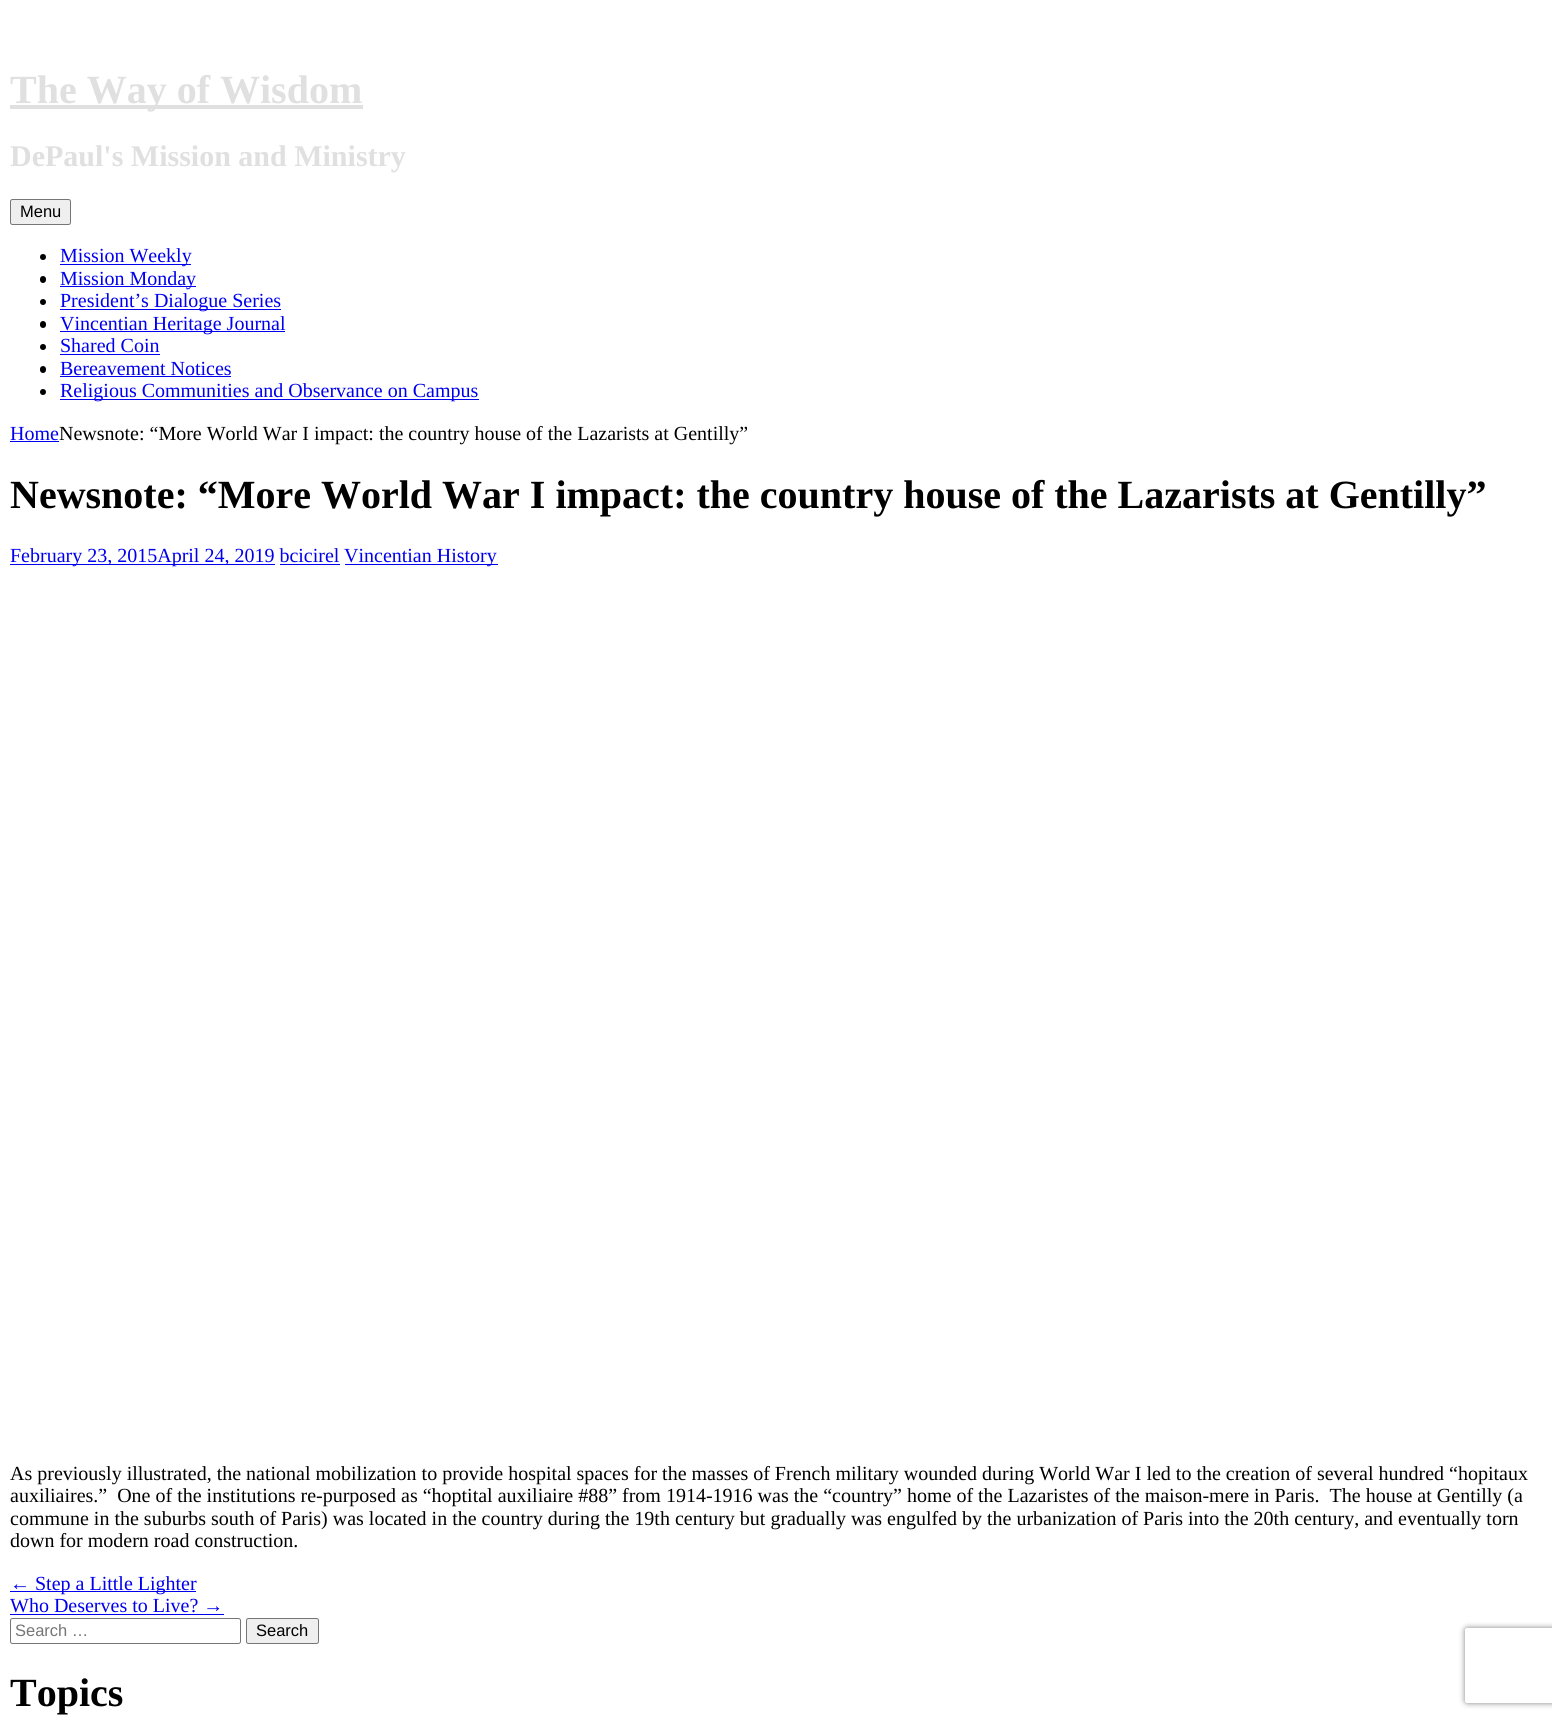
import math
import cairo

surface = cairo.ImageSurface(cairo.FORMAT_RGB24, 1552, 1719)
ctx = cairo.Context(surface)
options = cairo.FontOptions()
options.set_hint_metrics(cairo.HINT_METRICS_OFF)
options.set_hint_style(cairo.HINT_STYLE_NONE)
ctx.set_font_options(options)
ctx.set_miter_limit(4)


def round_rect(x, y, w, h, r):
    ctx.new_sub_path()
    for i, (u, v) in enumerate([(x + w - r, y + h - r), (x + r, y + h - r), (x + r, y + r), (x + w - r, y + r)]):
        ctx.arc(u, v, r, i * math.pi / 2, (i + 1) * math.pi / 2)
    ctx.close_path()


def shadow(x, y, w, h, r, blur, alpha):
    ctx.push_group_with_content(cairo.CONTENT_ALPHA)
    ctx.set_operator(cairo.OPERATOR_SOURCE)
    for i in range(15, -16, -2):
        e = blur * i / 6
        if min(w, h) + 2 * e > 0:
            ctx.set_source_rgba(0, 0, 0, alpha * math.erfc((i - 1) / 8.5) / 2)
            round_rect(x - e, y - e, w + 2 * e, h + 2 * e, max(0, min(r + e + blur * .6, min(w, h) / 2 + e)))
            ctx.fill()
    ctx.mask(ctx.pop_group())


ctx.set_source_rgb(1, 1, 1)
ctx.paint()
ctx.set_source_rgb(0.878, 0.878, 0.878)
ctx.rectangle(10, 105, 353, 4)
ctx.fill()
ctx.select_font_face("Liberation Serif", cairo.FONT_SLANT_NORMAL, cairo.FONT_WEIGHT_BOLD)
ctx.set_font_size(40)
ctx.move_to(10, 103)
ctx.show_text("The Way of Wisdom")
ctx.set_font_size(30)
ctx.move_to(10, 166)
ctx.show_text("DePaul's Mission and Ministry")
ctx.set_source_rgb(0.937, 0.937, 0.937)
round_rect(10.5, 199.5, 60, 25, 2)
ctx.fill_preserve()
ctx.set_source_rgb(0.463, 0.463, 0.463)
ctx.set_line_width(1)
ctx.stroke()
ctx.select_font_face("Liberation Sans")
ctx.set_font_size(16.5)
ctx.set_source_rgb(0, 0, 0)
ctx.move_to(20, 217)
ctx.show_text("Menu")
ctx.new_path()
ctx.arc(43, 257, 3, 0, 2 * math.pi)
ctx.fill()
ctx.set_source_rgb(0, 0, 0.933)
ctx.rectangle(60, 264, 131, 1)
ctx.fill()
ctx.select_font_face("Liberation Serif")
ctx.set_font_size(20)
ctx.move_to(60, 262)
ctx.show_text("Mission Weekly")
ctx.set_source_rgb(0, 0, 0)
round_rect(40, 276, 6, 7, 3)
ctx.fill()
ctx.set_source_rgb(0, 0, 0.933)
ctx.rectangle(60, 286, 136, 1)
ctx.fill()
ctx.move_to(60, 285)
ctx.show_text("Mission Monday")
ctx.set_source_rgb(0, 0, 0)
ctx.new_path()
ctx.arc(43, 302, 3, 0, 2 * math.pi)
ctx.fill()
ctx.set_source_rgb(0, 0, 0.933)
ctx.rectangle(60, 309, 221, 1)
ctx.fill()
ctx.move_to(60, 307)
ctx.show_text("President’s Dialogue Series")
ctx.set_source_rgb(0, 0, 0)
round_rect(40, 321, 6, 7, 3)
ctx.fill()
ctx.set_source_rgb(0, 0, 0.933)
ctx.rectangle(60, 331, 225, 1)
ctx.fill()
ctx.move_to(60, 330)
ctx.show_text("Vincentian Heritage Journal")
ctx.set_source_rgb(0, 0, 0)
ctx.new_path()
ctx.arc(43, 347, 3, 0, 2 * math.pi)
ctx.fill()
ctx.set_source_rgb(0, 0, 0.933)
ctx.move_to(60, 352)
ctx.show_text("Shared Coin")
ctx.rectangle(60, 354, 100, 1)
ctx.fill()
ctx.set_source_rgb(0, 0, 0)
round_rect(40, 366, 6, 7, 3)
ctx.fill()
ctx.set_source_rgb(0, 0, 0.933)
ctx.move_to(60, 375)
ctx.show_text("Bereavement Notices")
ctx.rectangle(60, 376, 171, 1)
ctx.fill()
ctx.set_source_rgb(0, 0, 0)
ctx.arc(43, 392, 3, 0, 2 * math.pi)
ctx.fill()
ctx.set_source_rgb(0, 0, 0.933)
ctx.rectangle(60, 399, 419, 1)
ctx.fill()
ctx.move_to(60, 397)
ctx.show_text("Religious Communities and Observance on Campus")
ctx.move_to(10, 440)
ctx.show_text("Home")
ctx.rectangle(10, 441, 49, 1)
ctx.fill()
ctx.set_source_rgb(0, 0, 0)
ctx.move_to(59, 440)
ctx.show_text("Newsnote: “More World War I impact: the country house of the Lazarists at Gentilly”")
ctx.select_font_face("Liberation Serif", cairo.FONT_SLANT_NORMAL, cairo.FONT_WEIGHT_BOLD)
ctx.set_font_size(40)
ctx.move_to(10, 508)
ctx.show_text("Newsnote: “More World War I impact: the country house of the Lazarists at Gentilly”")
ctx.set_source_rgb(0, 0, 0.933)
ctx.rectangle(10, 564, 265, 1)
ctx.fill()
ctx.select_font_face("Liberation Serif")
ctx.set_font_size(20)
ctx.move_to(10, 562)
ctx.show_text("February 23, 2015April 24, 2019 bcicirel")
ctx.rectangle(345, 564, 153, 1)
ctx.fill()
ctx.move_to(344, 562)
ctx.show_text("Vincentian History")
ctx.rectangle(280, 564, 60, 1)
ctx.fill()
ctx.set_source_rgb(0, 0, 0)
ctx.move_to(10, 1480)
ctx.show_text("As previously illustrated, the national mobilization to provide hospital spaces for the masses of French military wounded during World War I led to the creation of several hundred “hopitaux")
ctx.move_to(10, 1502)
ctx.show_text("auxiliaires.”  One of the institutions re-purposed as “hoptital auxiliaire #88” from 1914-1916 was the “country” home of the Lazaristes of the maison-mere in Paris.  The house at Gentilly (a")
ctx.move_to(10, 1525)
ctx.show_text("commune in the suburbs south of Paris) was located in the country during the 19th century but gradually was engulfed by the urbanization of Paris into the 20th century, and eventually torn")
ctx.move_to(10, 1547)
ctx.show_text("down for modern road construction.")
ctx.set_source_rgb(0, 0, 0.933)
ctx.rectangle(10, 1591, 186, 1)
ctx.fill()
ctx.move_to(10, 1590)
ctx.show_text("← Step a Little Lighter")
ctx.move_to(10, 1612)
ctx.show_text("Who Deserves to Live? →")
ctx.rectangle(10, 1614, 214, 1)
ctx.fill()
round_rect(10.5, 1618.5, 230, 25, 2)
ctx.set_source_rgb(0.463, 0.463, 0.463)
ctx.stroke()
ctx.select_font_face("Liberation Sans")
ctx.set_font_size(16.5)
ctx.set_source_rgb(0.459, 0.459, 0.459)
ctx.move_to(15, 1636)
ctx.show_text("Search …")
ctx.set_source_rgb(0.937, 0.937, 0.937)
round_rect(246.5, 1618.5, 72, 25, 2)
ctx.fill_preserve()
ctx.set_source_rgb(0.463, 0.463, 0.463)
ctx.stroke()
ctx.set_source_rgb(0, 0, 0)
ctx.move_to(256, 1636)
ctx.show_text("Search")
ctx.select_font_face("Liberation Serif", cairo.FONT_SLANT_NORMAL, cairo.FONT_WEIGHT_BOLD)
ctx.set_font_size(40)
ctx.move_to(10, 1706)
ctx.show_text("Topics")
ctx.save()
ctx.set_fill_rule(cairo.FILL_RULE_EVEN_ODD)
ctx.new_path()
ctx.move_to(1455, 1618)
ctx.line_to(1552, 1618)
ctx.line_to(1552, 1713)
ctx.line_to(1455, 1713)
ctx.close_path()
ctx.move_to(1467.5, 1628)
ctx.line_to(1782.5, 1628)
ctx.curve_to(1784, 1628, 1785, 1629, 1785, 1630.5)
ctx.line_to(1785, 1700.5)
ctx.curve_to(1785, 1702, 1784, 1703, 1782.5, 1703)
ctx.line_to(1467.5, 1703)
ctx.curve_to(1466, 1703, 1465, 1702, 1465, 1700.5)
ctx.line_to(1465, 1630.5)
ctx.curve_to(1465, 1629, 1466, 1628, 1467.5, 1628)
ctx.close_path()
ctx.clip()
ctx.set_source_rgb(0.502, 0.502, 0.502)
shadow(1465, 1628, 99, 75, 2.5, 3, 1)
ctx.restore()
surface.write_to_png("page.png")
